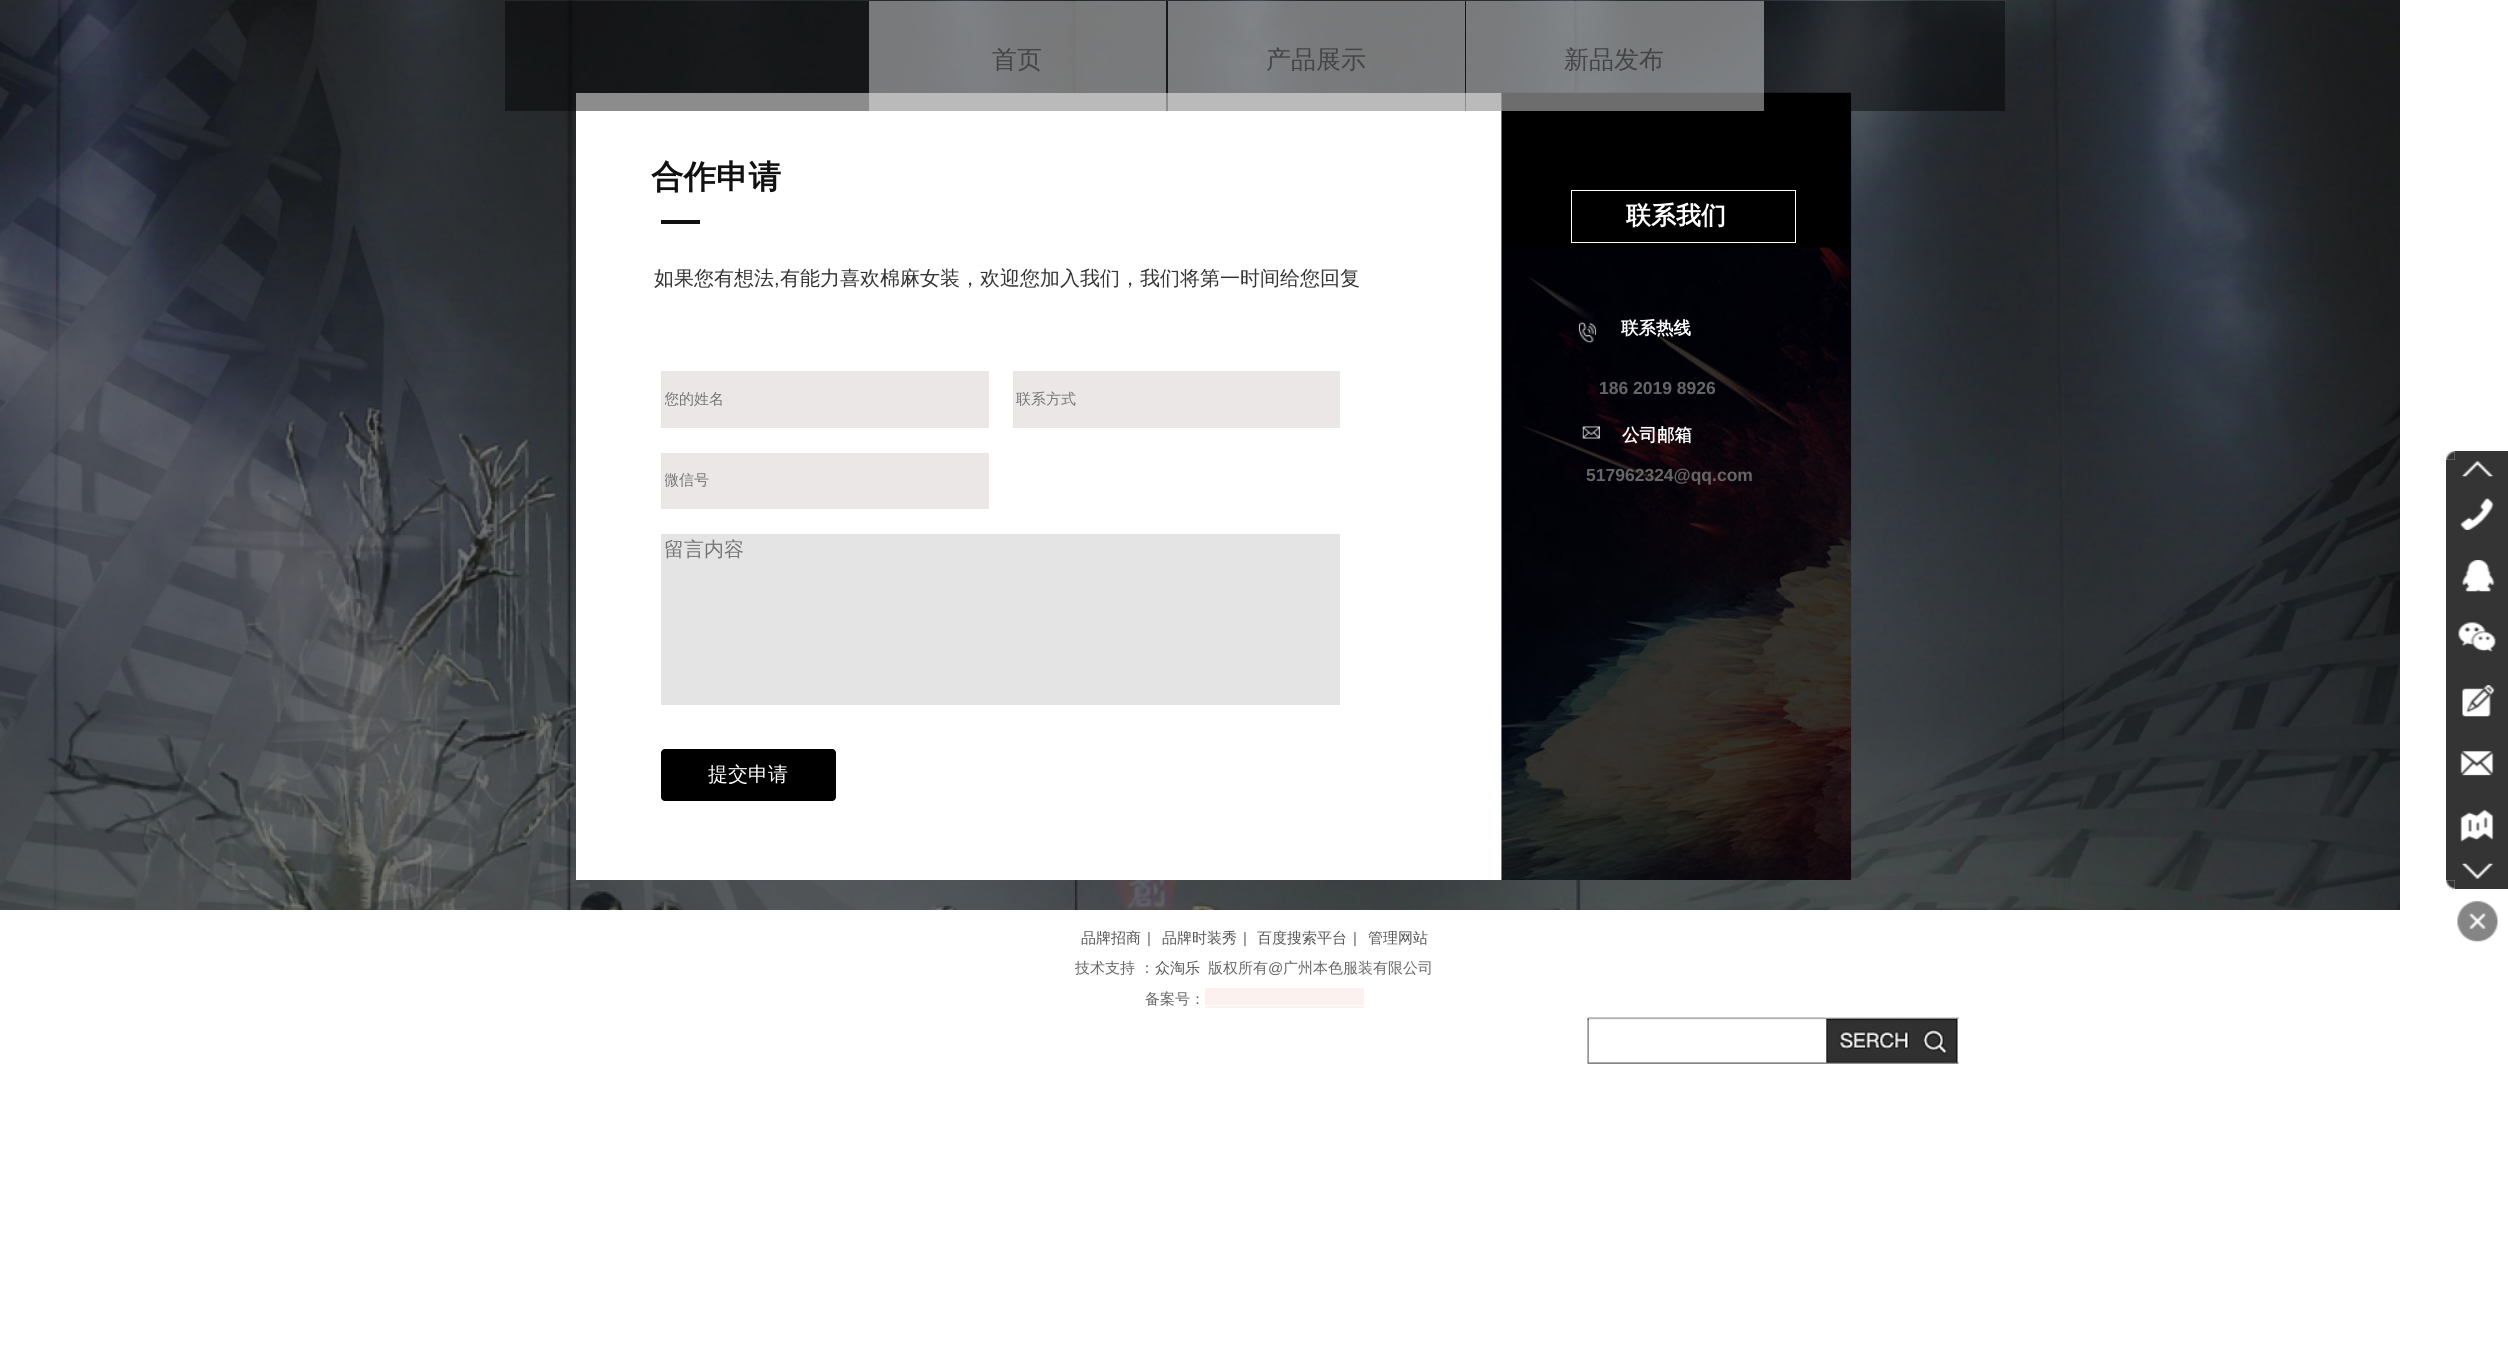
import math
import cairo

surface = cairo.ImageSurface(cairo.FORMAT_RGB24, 2508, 1349)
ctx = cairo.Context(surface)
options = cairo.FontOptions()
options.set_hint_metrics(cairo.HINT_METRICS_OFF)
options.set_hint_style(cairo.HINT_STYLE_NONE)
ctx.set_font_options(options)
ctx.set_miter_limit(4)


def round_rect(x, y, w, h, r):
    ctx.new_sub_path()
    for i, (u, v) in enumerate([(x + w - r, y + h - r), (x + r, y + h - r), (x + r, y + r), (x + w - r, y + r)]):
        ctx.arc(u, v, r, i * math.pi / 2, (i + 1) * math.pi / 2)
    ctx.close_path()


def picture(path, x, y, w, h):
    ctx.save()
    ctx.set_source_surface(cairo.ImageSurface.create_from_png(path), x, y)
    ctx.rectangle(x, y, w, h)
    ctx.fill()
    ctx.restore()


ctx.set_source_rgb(1, 1, 1)
ctx.paint()
picture("img2.png", 0, 0, 2400, 910)
ctx.set_source_rgb(1, 1, 1)
ctx.rectangle(576, 93, 926, 787)
ctx.fill()
picture("img3.png", 1501, 92, 351, 788)
ctx.set_source_rgba(0, 0, 0, 0.45)
ctx.rectangle(505, 1, 1500, 110)
ctx.fill()
ctx.set_source_rgba(0.953, 0.953, 0.953, 0.45)
ctx.rectangle(869, 1, 297, 110)
ctx.fill()
ctx.select_font_face("WenQuanYi Zen Hei Medium")
ctx.set_font_size(25)
ctx.set_source_rgb(0.263, 0.267, 0.271)
ctx.move_to(992, 68)
ctx.show_text("首页")
ctx.set_source_rgba(0.953, 0.953, 0.953, 0.45)
ctx.rectangle(1168, 1, 297, 110)
ctx.fill()
ctx.set_source_rgb(0.263, 0.267, 0.271)
ctx.move_to(1266, 68)
ctx.show_text("产品展示")
ctx.set_source_rgba(0.953, 0.953, 0.953, 0.45)
ctx.rectangle(1466, 1, 298, 110)
ctx.fill()
ctx.set_source_rgb(0.263, 0.267, 0.271)
ctx.move_to(1564, 68)
ctx.show_text("新品发布")
picture("img1.png", 1587, 1017, 372, 48)
ctx.select_font_face("WenQuanYi Zen Hei", cairo.FONT_SLANT_NORMAL, cairo.FONT_WEIGHT_BOLD)
ctx.set_font_size(32.5)
ctx.set_source_rgb(0.067, 0.067, 0.067)
ctx.move_to(651, 188)
ctx.show_text("合作申请")
ctx.rectangle(1571.5, 190.5, 224, 52)
ctx.set_source_rgb(1, 1, 1)
ctx.set_line_width(1)
ctx.stroke()
ctx.set_source_rgb(0.067, 0.067, 0.067)
ctx.rectangle(661, 220, 39, 4)
ctx.fill()
ctx.save()
ctx.rectangle(1626, 199, 125, 34)
ctx.clip()
ctx.set_font_size(25)
ctx.set_source_rgb(1, 1, 1)
ctx.move_to(1626, 224)
ctx.show_text("联系我们")
ctx.restore()
ctx.select_font_face("WenQuanYi Zen Hei Medium")
ctx.set_font_size(20)
ctx.set_source_rgb(0.2, 0.2, 0.2)
ctx.move_to(654, 285)
ctx.show_text("如果您有想法")
ctx.select_font_face("Liberation Sans")
ctx.move_to(774, 285)
ctx.show_text(",")
ctx.select_font_face("WenQuanYi Zen Hei Medium")
ctx.move_to(780, 285)
ctx.show_text("有能力喜欢棉麻女装，欢迎您加入我们，我们将第一时间给您回复")
picture("img4.png", 1578, 322, 19, 21)
ctx.select_font_face("WenQuanYi Zen Hei", cairo.FONT_SLANT_NORMAL, cairo.FONT_WEIGHT_BOLD)
ctx.set_font_size(17.5)
ctx.set_source_rgb(1, 1, 1)
ctx.move_to(1621, 334)
ctx.show_text("联系热线")
ctx.select_font_face("Liberation Sans", cairo.FONT_SLANT_NORMAL, cairo.FONT_WEIGHT_BOLD)
ctx.set_source_rgb(0.4, 0.4, 0.4)
ctx.move_to(1599, 394)
ctx.show_text("186 2019 8926")
ctx.set_source_rgb(0.918, 0.906, 0.906)
ctx.rectangle(661, 371, 328, 57)
ctx.fill()
ctx.save()
ctx.rectangle(665, 389, 320, 21)
ctx.clip()
ctx.select_font_face("WenQuanYi Zen Hei Medium")
ctx.set_font_size(15)
ctx.set_source_rgb(0.459, 0.459, 0.459)
ctx.move_to(664, 404)
ctx.show_text("您的姓名")
ctx.restore()
ctx.rectangle(1013, 371, 327, 57)
ctx.fill()
ctx.select_font_face("WenQuanYi Zen Hei Medium")
ctx.set_font_size(15)
ctx.set_source_rgb(0.459, 0.459, 0.459)
ctx.move_to(1016, 404)
ctx.show_text("联系方式")
ctx.set_source_rgb(0.918, 0.906, 0.906)
ctx.rectangle(661, 453, 328, 56)
ctx.fill()
ctx.save()
ctx.rectangle(665, 470, 320, 21)
ctx.clip()
ctx.set_source_rgb(0.459, 0.459, 0.459)
ctx.move_to(664, 485)
ctx.show_text("微信号")
ctx.restore()
ctx.set_source_rgb(0.894, 0.894, 0.894)
ctx.rectangle(661, 534, 679, 171)
ctx.fill()
ctx.set_font_size(20)
ctx.set_source_rgb(0.459, 0.459, 0.459)
ctx.move_to(664, 556)
ctx.show_text("留言内容")
ctx.set_source_rgb(0, 0, 0)
round_rect(661, 749, 175, 52, 4)
ctx.fill()
ctx.set_source_rgb(1, 1, 1)
ctx.move_to(708, 781)
ctx.show_text("提交申请")
picture("img5.png", 1582, 426, 18, 13)
ctx.select_font_face("WenQuanYi Zen Hei", cairo.FONT_SLANT_NORMAL, cairo.FONT_WEIGHT_BOLD)
ctx.set_font_size(17.5)
ctx.move_to(1622, 441)
ctx.show_text("公司邮箱")
ctx.select_font_face("Liberation Sans", cairo.FONT_SLANT_NORMAL, cairo.FONT_WEIGHT_BOLD)
ctx.set_source_rgb(0.4, 0.4, 0.4)
ctx.move_to(1586, 481)
ctx.show_text("517962324@qq.com")
picture("img6.png", 2446, 451, 9, 9)
ctx.set_source_rgb(0.204, 0.204, 0.204)
ctx.rectangle(2455, 451, 53, 9)
ctx.fill()
ctx.rectangle(2446, 460, 62, 420)
ctx.fill()
picture("img7.png", 2462, 460, 32, 17)
picture("img8.png", 2460, 498, 34, 32)
picture("img9.png", 2462, 560, 33, 32)
picture("img10.png", 2458, 622, 38, 30)
picture("img11.png", 2462, 685, 33, 32)
picture("img12.png", 2460, 751, 34, 25)
picture("img13.png", 2460, 810, 34, 32)
picture("img14.png", 2462, 863, 32, 17)
picture("img15.png", 2446, 880, 9, 10)
ctx.rectangle(2455, 880, 53, 9)
ctx.fill()
picture("img16.png", 2457, 901, 41, 41)
ctx.select_font_face("WenQuanYi Zen Hei Medium")
ctx.set_font_size(15)
ctx.set_source_rgb(0.333, 0.333, 0.333)
ctx.move_to(1081, 943)
ctx.show_text("品牌招商")
ctx.select_font_face("Liberation Sans")
ctx.set_source_rgb(0.4, 0.4, 0.4)
ctx.move_to(1147, 943)
ctx.show_text("|")
ctx.select_font_face("WenQuanYi Zen Hei Medium")
ctx.set_source_rgb(0.333, 0.333, 0.333)
ctx.move_to(1162, 943)
ctx.show_text("品牌时装秀")
ctx.select_font_face("Liberation Sans")
ctx.set_source_rgb(0.4, 0.4, 0.4)
ctx.move_to(1243, 943)
ctx.show_text("|")
ctx.select_font_face("WenQuanYi Zen Hei Medium")
ctx.set_source_rgb(0.333, 0.333, 0.333)
ctx.move_to(1257, 943)
ctx.show_text("百度搜索平台")
ctx.select_font_face("Liberation Sans")
ctx.set_source_rgb(0.4, 0.4, 0.4)
ctx.move_to(1353, 943)
ctx.show_text("|")
ctx.select_font_face("WenQuanYi Zen Hei Medium")
ctx.set_source_rgb(0.333, 0.333, 0.333)
ctx.move_to(1368, 943)
ctx.show_text("管理网站")
ctx.set_source_rgb(0.4, 0.4, 0.4)
ctx.move_to(1075, 973)
ctx.show_text("技术支持 ：")
ctx.set_source_rgb(0.333, 0.333, 0.333)
ctx.move_to(1155, 973)
ctx.show_text("众淘乐")
ctx.set_source_rgb(0.4, 0.4, 0.4)
ctx.move_to(1208, 973)
ctx.show_text("版权所有")
ctx.select_font_face("Liberation Sans")
ctx.move_to(1268, 973)
ctx.show_text("@")
ctx.select_font_face("WenQuanYi Zen Hei Medium")
ctx.move_to(1283, 973)
ctx.show_text("广州本色服装有限公司")
ctx.move_to(1145, 1004)
ctx.show_text("备案号：")
ctx.set_source_rgb(0.992, 0.945, 0.937)
ctx.rectangle(1205, 988, 159, 20)
ctx.fill()
ctx.set_source_rgb(1, 1, 1)
ctx.rectangle(1205, 1005, 159, 1)
ctx.fill()
surface.write_to_png("page.png")
